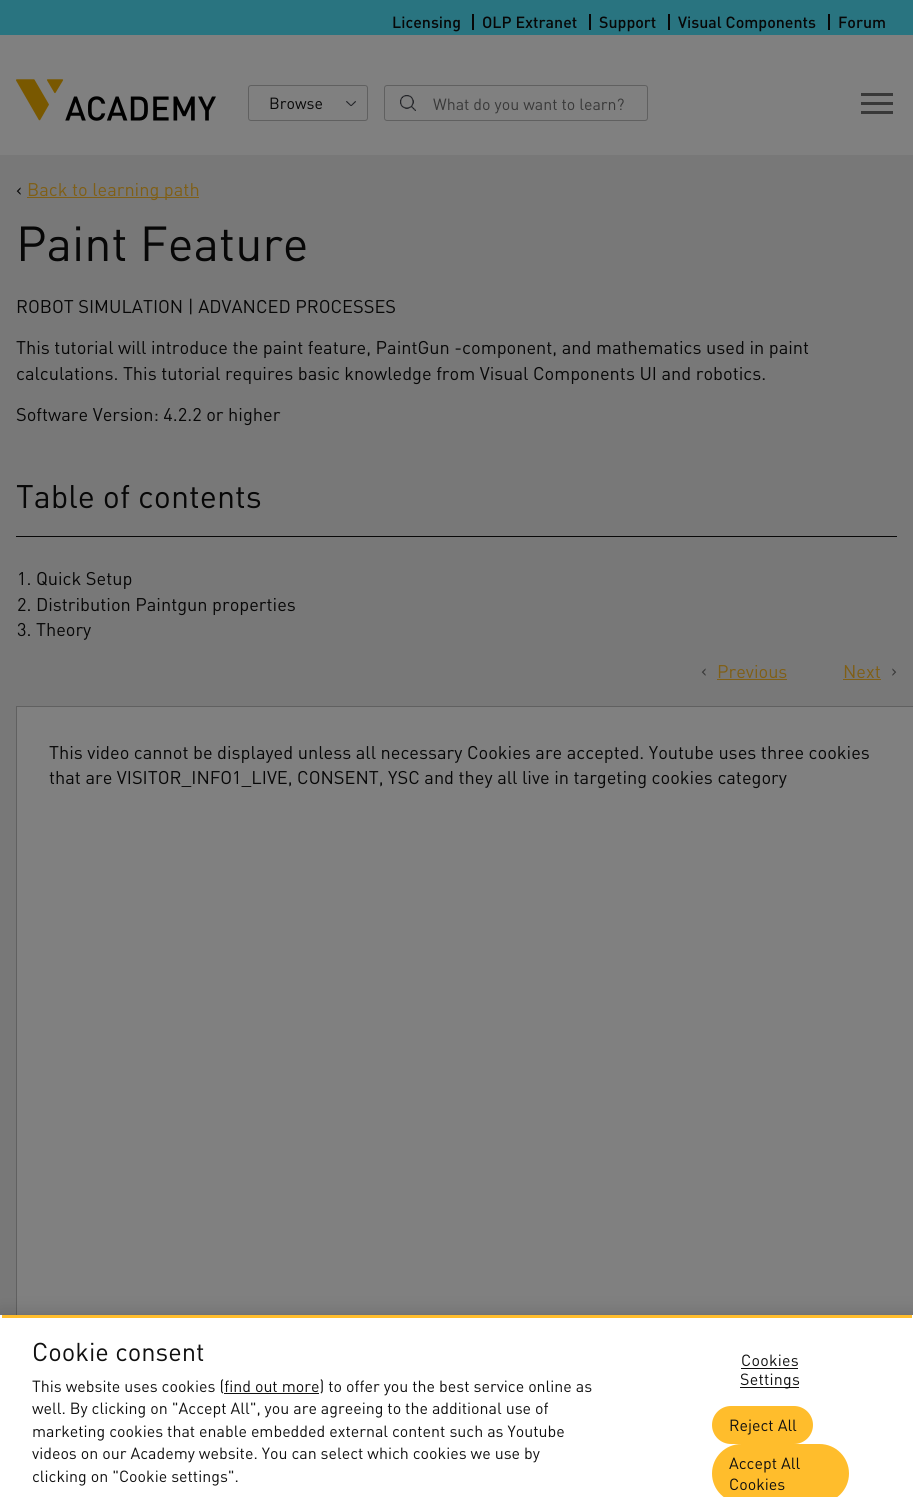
import math
import cairo

surface = cairo.ImageSurface(cairo.FORMAT_RGB24, 913, 1497)
ctx = cairo.Context(surface)
options = cairo.FontOptions()
options.set_hint_metrics(cairo.HINT_METRICS_OFF)
options.set_hint_style(cairo.HINT_STYLE_NONE)
ctx.set_font_options(options)
ctx.set_miter_limit(4)


def spaced_text(x, y, s, letter, word):
    ctx.move_to(x, y)
    for ch in s:
        ctx.show_text(ch)
        ctx.rel_move_to(letter + word * (ch == ' '), 0)


def round_rect(x, y, w, h, r):
    ctx.new_sub_path()
    for i, (u, v) in enumerate([(x + w - r, y + h - r), (x + r, y + h - r), (x + r, y + r), (x + w - r, y + r)]):
        ctx.arc(u, v, r, i * math.pi / 2, (i + 1) * math.pi / 2)
    ctx.close_path()


def shadow(x, y, w, h, r, blur, alpha):
    ctx.push_group_with_content(cairo.CONTENT_ALPHA)
    ctx.set_operator(cairo.OPERATOR_SOURCE)
    for i in range(15, -16, -2):
        e = blur * i / 6
        if min(w, h) + 2 * e > 0:
            ctx.set_source_rgba(0, 0, 0, alpha * math.erfc((i - 1) / 8.5) / 2)
            round_rect(x - e, y - e, w + 2 * e, h + 2 * e, max(0, min(r + e + blur * .6, min(w, h) / 2 + e)))
            ctx.fill()
    ctx.mask(ctx.pop_group())


def picture(path, x, y, w, h):
    ctx.save()
    ctx.set_source_surface(cairo.ImageSurface.create_from_png(path), x, y)
    ctx.rectangle(x, y, w, h)
    ctx.fill()
    ctx.restore()


ctx.set_source_rgb(0.471, 0.471, 0.471)
ctx.paint()
ctx.set_source_rgb(0.502, 0.502, 0.502)
ctx.rectangle(0, 35, 913, 120)
ctx.fill()
ctx.set_source_rgb(0.161, 0.455, 0.502)
ctx.rectangle(0, 0, 913, 35)
ctx.fill()
ctx.select_font_face("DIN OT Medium")
ctx.set_font_size(16)
ctx.set_source_rgb(0.031, 0.031, 0.031)
ctx.move_to(392, 28)
ctx.show_text("Licensing")
ctx.rectangle(472, 14, 2, 16)
ctx.fill()
ctx.move_to(482, 28)
ctx.show_text("OLP Extranet")
ctx.rectangle(589, 14, 2, 16)
ctx.fill()
ctx.move_to(599, 28)
ctx.show_text("Support")
ctx.rectangle(668, 14, 2, 16)
ctx.fill()
ctx.move_to(678, 28)
ctx.show_text("Visual Components")
ctx.rectangle(828, 14, 2, 16)
ctx.fill()
ctx.move_to(838, 28)
ctx.show_text("Forum")
picture("img1.png", 16, 79, 200, 42)
picture("img2.png", 346, 101, 10, 5)
round_rect(248.5, 85.5, 119, 35, 2.5)
ctx.set_source_rgb(0.376, 0.376, 0.376)
ctx.set_line_width(1)
ctx.stroke()
ctx.select_font_face("DIN OT")
ctx.set_source_rgb(0.031, 0.031, 0.031)
ctx.move_to(269, 109)
ctx.show_text("Browse")
round_rect(384.5, 85.5, 263, 35, 2.5)
ctx.set_source_rgb(0.376, 0.376, 0.376)
ctx.stroke()
picture("img3.png", 400, 95, 16, 16)
ctx.set_source_rgb(0.22, 0.22, 0.22)
ctx.move_to(433, 110)
ctx.show_text("What do you want to learn?")
ctx.rectangle(861, 93, 32, 3)
ctx.fill()
ctx.rectangle(861, 102, 32, 3)
ctx.fill()
ctx.rectangle(861, 111, 32, 3)
ctx.fill()
ctx.set_font_size(18.2)
ctx.set_source_rgb(0.031, 0.031, 0.031)
ctx.move_to(16, 196)
ctx.show_text("‹")
ctx.set_source_rgb(0.502, 0.373, 0.086)
ctx.rectangle(27, 197, 172, 1)
ctx.fill()
ctx.move_to(27, 196)
ctx.show_text("Back to learning path")
ctx.set_font_size(48.5)
ctx.set_source_rgb(0.031, 0.031, 0.031)
ctx.move_to(16, 261)
ctx.show_text("Paint Feature")
ctx.set_font_size(18.2)
ctx.move_to(16, 313)
ctx.show_text("ROBOT SIMULATION | ADVANCED PROCESSES")
ctx.move_to(16, 354)
ctx.show_text("This tutorial will introduce the paint feature, PaintGun -component, and mathematics used in paint")
ctx.move_to(16, 380)
ctx.show_text("calculations. This tutorial requires basic knowledge from Visual Components UI and robotics.")
ctx.move_to(16, 421)
ctx.show_text("Software Version: 4.2.2 or higher")
ctx.set_font_size(32.25)
ctx.move_to(16, 508)
ctx.show_text("Table of contents")
ctx.rectangle(16, 536, 881, 1)
ctx.fill()
ctx.set_font_size(18.2)
ctx.move_to(17, 585)
ctx.show_text("1. Quick Setup")
ctx.move_to(17, 611)
ctx.show_text("2. Distribution Paintgun properties")
ctx.move_to(17, 636)
ctx.show_text("3. Theory")
ctx.set_source_rgb(0.22, 0.22, 0.22)
ctx.move_to(701, 677)
ctx.show_text("‹")
ctx.set_source_rgb(0.502, 0.373, 0.086)
ctx.move_to(717, 678)
ctx.show_text("Previous")
ctx.rectangle(717, 679, 70, 1)
ctx.fill()
ctx.move_to(843, 678)
ctx.show_text("Next")
ctx.rectangle(843, 679, 38, 1)
ctx.fill()
ctx.set_source_rgb(0.22, 0.22, 0.22)
ctx.move_to(891, 677)
ctx.show_text("›")
ctx.set_source_rgb(0.502, 0.502, 0.502)
ctx.rectangle(17, 707, 896, 608)
ctx.fill()
ctx.rectangle(16.5, 706.5, 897, 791)
ctx.set_source_rgb(0.376, 0.376, 0.376)
ctx.stroke()
ctx.set_source_rgb(0.031, 0.031, 0.031)
ctx.move_to(49, 759)
ctx.show_text("This video cannot be displayed unless all necessary Cookies are accepted. Youtube uses three cookies")
ctx.move_to(49, 784)
ctx.show_text("that are VISITOR_INFO1_LIVE, CONSENT, YSC and they all live in targeting cookies category")
ctx.set_source_rgb(0, 0, 0)
shadow(0, 1315, 913, 182, 0, 9, 0.2)
ctx.set_source_rgb(1, 1, 1)
ctx.rectangle(0, 1315, 913, 182)
ctx.fill()
ctx.set_source_rgb(1, 0.741, 0.173)
ctx.rectangle(2, 1315, 910, 3)
ctx.fill()
ctx.set_font_size(25.5)
ctx.set_source_rgb(0.063, 0.063, 0.063)
ctx.move_to(32, 1361)
ctx.show_text("Cookie consent")
ctx.set_font_size(16)
ctx.move_to(32, 1392)
ctx.show_text("This website uses cookies (find out more) to offer you the best service online as")
ctx.rectangle(224, 1393, 95, 1)
ctx.fill()
ctx.move_to(32, 1414)
ctx.show_text("well. By clicking on \"Accept All\", you are agreeing to the additional use of")
ctx.move_to(32, 1437)
ctx.show_text("marketing cookies that enable embedded external content such as Youtube")
ctx.move_to(32, 1459)
ctx.show_text("videos on our Academy website. You can select which cookies we use by")
ctx.move_to(32, 1482)
ctx.show_text("clicking on \"Cookie settings\".")
spaced_text(741, 1366, "Cookies", 0.25, 0)
ctx.rectangle(741, 1368, 57, 1)
ctx.fill()
ctx.rectangle(740, 1387, 59, 1)
ctx.fill()
spaced_text(740, 1385, "Settings", 0.25, 0)
ctx.set_source_rgb(1, 0.741, 0.173)
round_rect(712, 1406, 101, 38, 19)
ctx.fill()
ctx.set_source_rgb(0.063, 0.063, 0.063)
ctx.move_to(729, 1431)
ctx.show_text("Reject All")
ctx.set_source_rgb(1, 0.741, 0.173)
round_rect(712, 1444, 137, 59, 29.5)
ctx.fill()
ctx.set_source_rgb(0.063, 0.063, 0.063)
ctx.move_to(729, 1469)
ctx.show_text("Accept All")
ctx.move_to(729, 1490)
ctx.show_text("Cookies")
surface.write_to_png("page.png")
